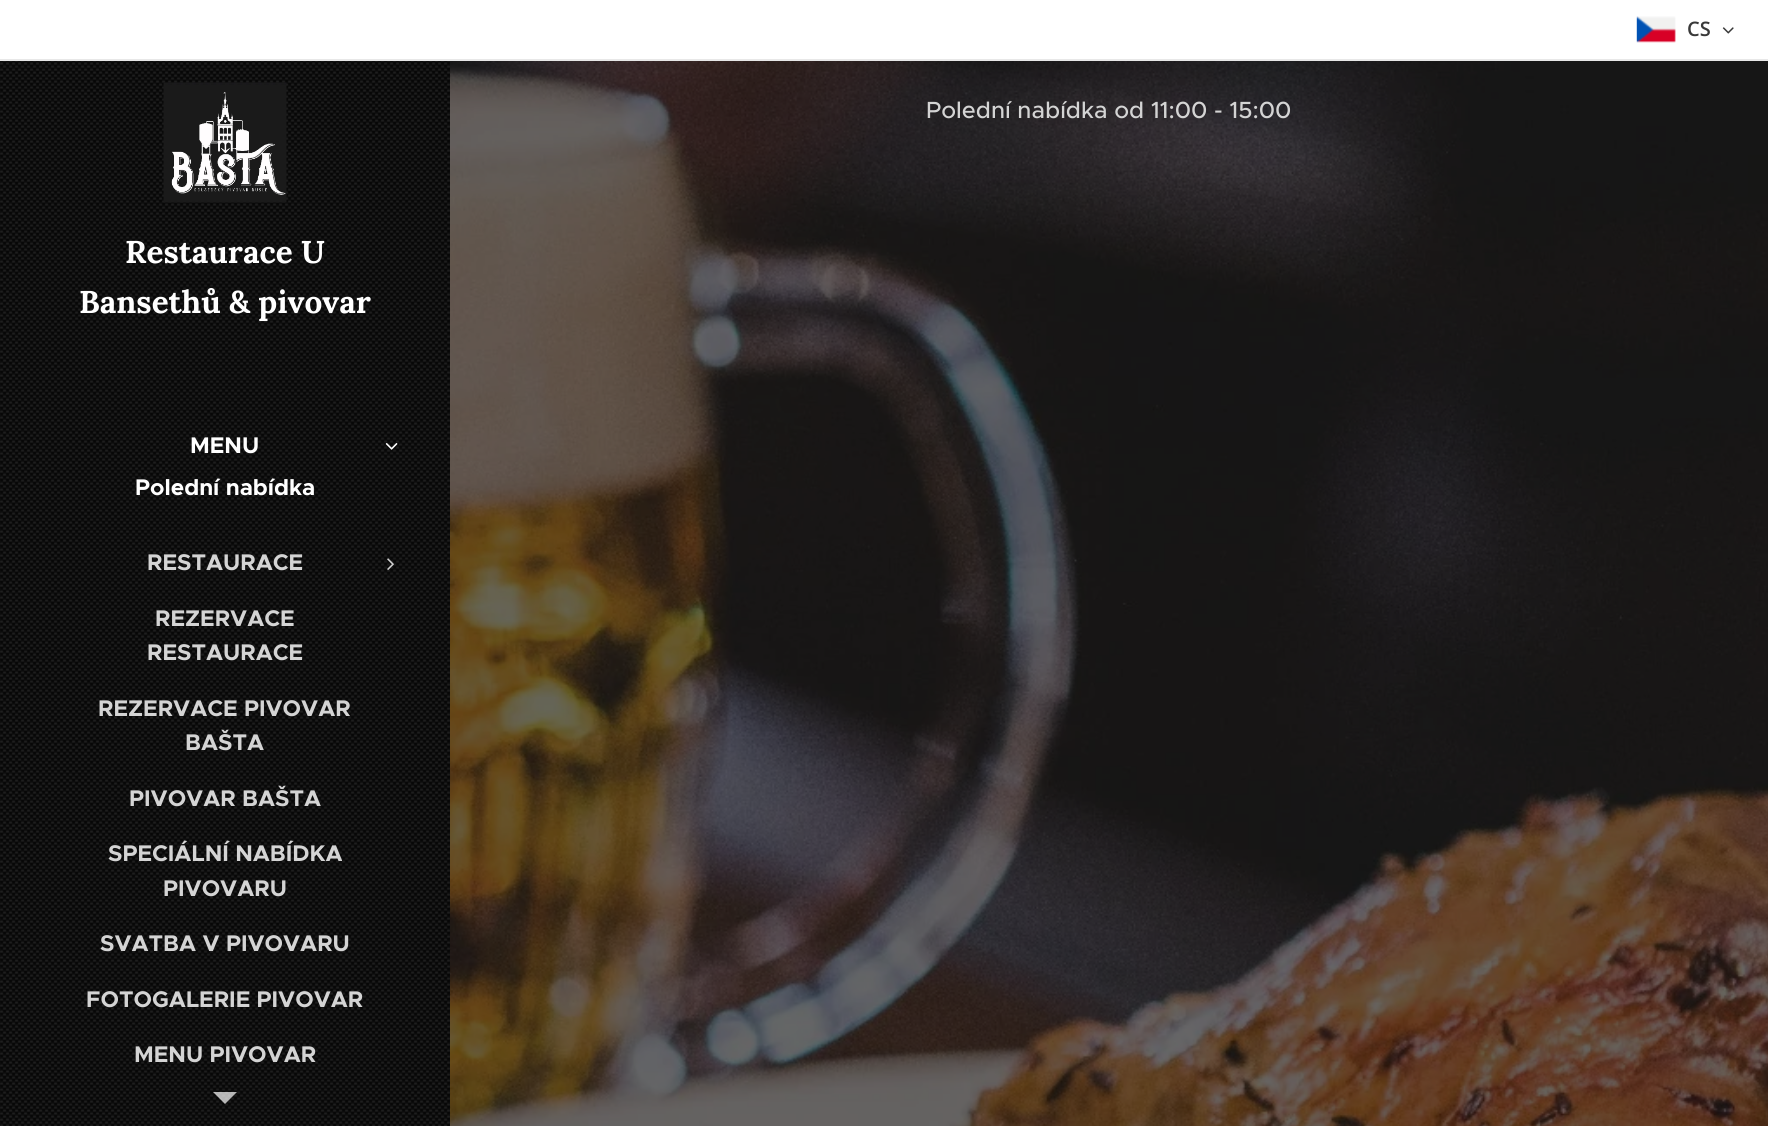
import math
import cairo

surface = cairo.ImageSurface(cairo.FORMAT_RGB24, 1768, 1126)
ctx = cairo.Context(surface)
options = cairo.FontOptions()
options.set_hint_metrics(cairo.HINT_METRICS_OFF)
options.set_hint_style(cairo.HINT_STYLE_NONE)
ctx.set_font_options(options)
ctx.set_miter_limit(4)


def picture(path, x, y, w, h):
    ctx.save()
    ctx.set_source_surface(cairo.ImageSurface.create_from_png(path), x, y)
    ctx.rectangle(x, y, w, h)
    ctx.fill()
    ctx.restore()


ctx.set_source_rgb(1, 1, 1)
ctx.paint()
picture("img1.png", 1636, 16, 40, 27)
ctx.select_font_face("Open Sans SemiBold")
ctx.set_font_size(20)
ctx.set_source_rgb(0.224, 0.224, 0.224)
ctx.move_to(1687, 36)
ctx.show_text("CS")
picture("img2.png", 1722, 27, 12, 7)
ctx.set_source_rgb(0.91, 0.91, 0.91)
ctx.rectangle(0, 59, 1768, 2)
ctx.fill()
picture("img3.png", 0, 61, 450, 1065)
picture("img4.png", 163, 82, 124, 121)
ctx.select_font_face("Lora", cairo.FONT_SLANT_NORMAL, cairo.FONT_WEIGHT_BOLD)
ctx.set_font_size(31.5)
ctx.set_source_rgb(1, 1, 1)
ctx.move_to(125, 263)
ctx.show_text("Restaurace U")
ctx.move_to(79, 313)
ctx.show_text("Bansethů & pivovar")
ctx.select_font_face("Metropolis", cairo.FONT_SLANT_NORMAL, cairo.FONT_WEIGHT_BOLD)
ctx.set_font_size(22.75)
ctx.move_to(190, 453)
ctx.show_text("MENU")
picture("img5.png", 385, 443, 13, 7)
ctx.move_to(135, 495)
ctx.show_text("Polední nabídka")
ctx.set_source_rgb(0.831, 0.831, 0.831)
ctx.move_to(147, 570)
ctx.show_text("RESTAURACE")
picture("img6.png", 387, 558, 7, 12)
ctx.move_to(155, 626)
ctx.show_text("REZERVACE")
ctx.move_to(147, 660)
ctx.show_text("RESTAURACE")
ctx.move_to(98, 716)
ctx.show_text("REZERVACE PIVOVAR")
ctx.move_to(185, 750)
ctx.show_text("BAŠTA")
ctx.move_to(129, 806)
ctx.show_text("PIVOVAR BAŠTA")
ctx.move_to(108, 861)
ctx.show_text("SPECIÁLNÍ NABÍDKA")
ctx.move_to(163, 896)
ctx.show_text("PIVOVARU")
ctx.move_to(100, 951)
ctx.show_text("SVATBA V PIVOVARU")
ctx.move_to(86, 1007)
ctx.show_text("FOTOGALERIE PIVOVAR")
ctx.move_to(134, 1062)
ctx.show_text("MENU PIVOVAR")
ctx.set_source_rgba(1, 1, 1, 0.7)
ctx.new_path()
ctx.move_to(213, 1092)
ctx.line_to(237, 1092)
ctx.line_to(225, 1104)
ctx.close_path()
ctx.fill()
picture("img7.png", 450, 61, 1318, 1065)
ctx.select_font_face("Metropolis Medium")
ctx.set_font_size(23.5)
ctx.set_source_rgb(0.831, 0.831, 0.831)
ctx.move_to(926, 118)
ctx.show_text("Polední nabídka od 11:00 - 15:00")
surface.write_to_png("page.png")
